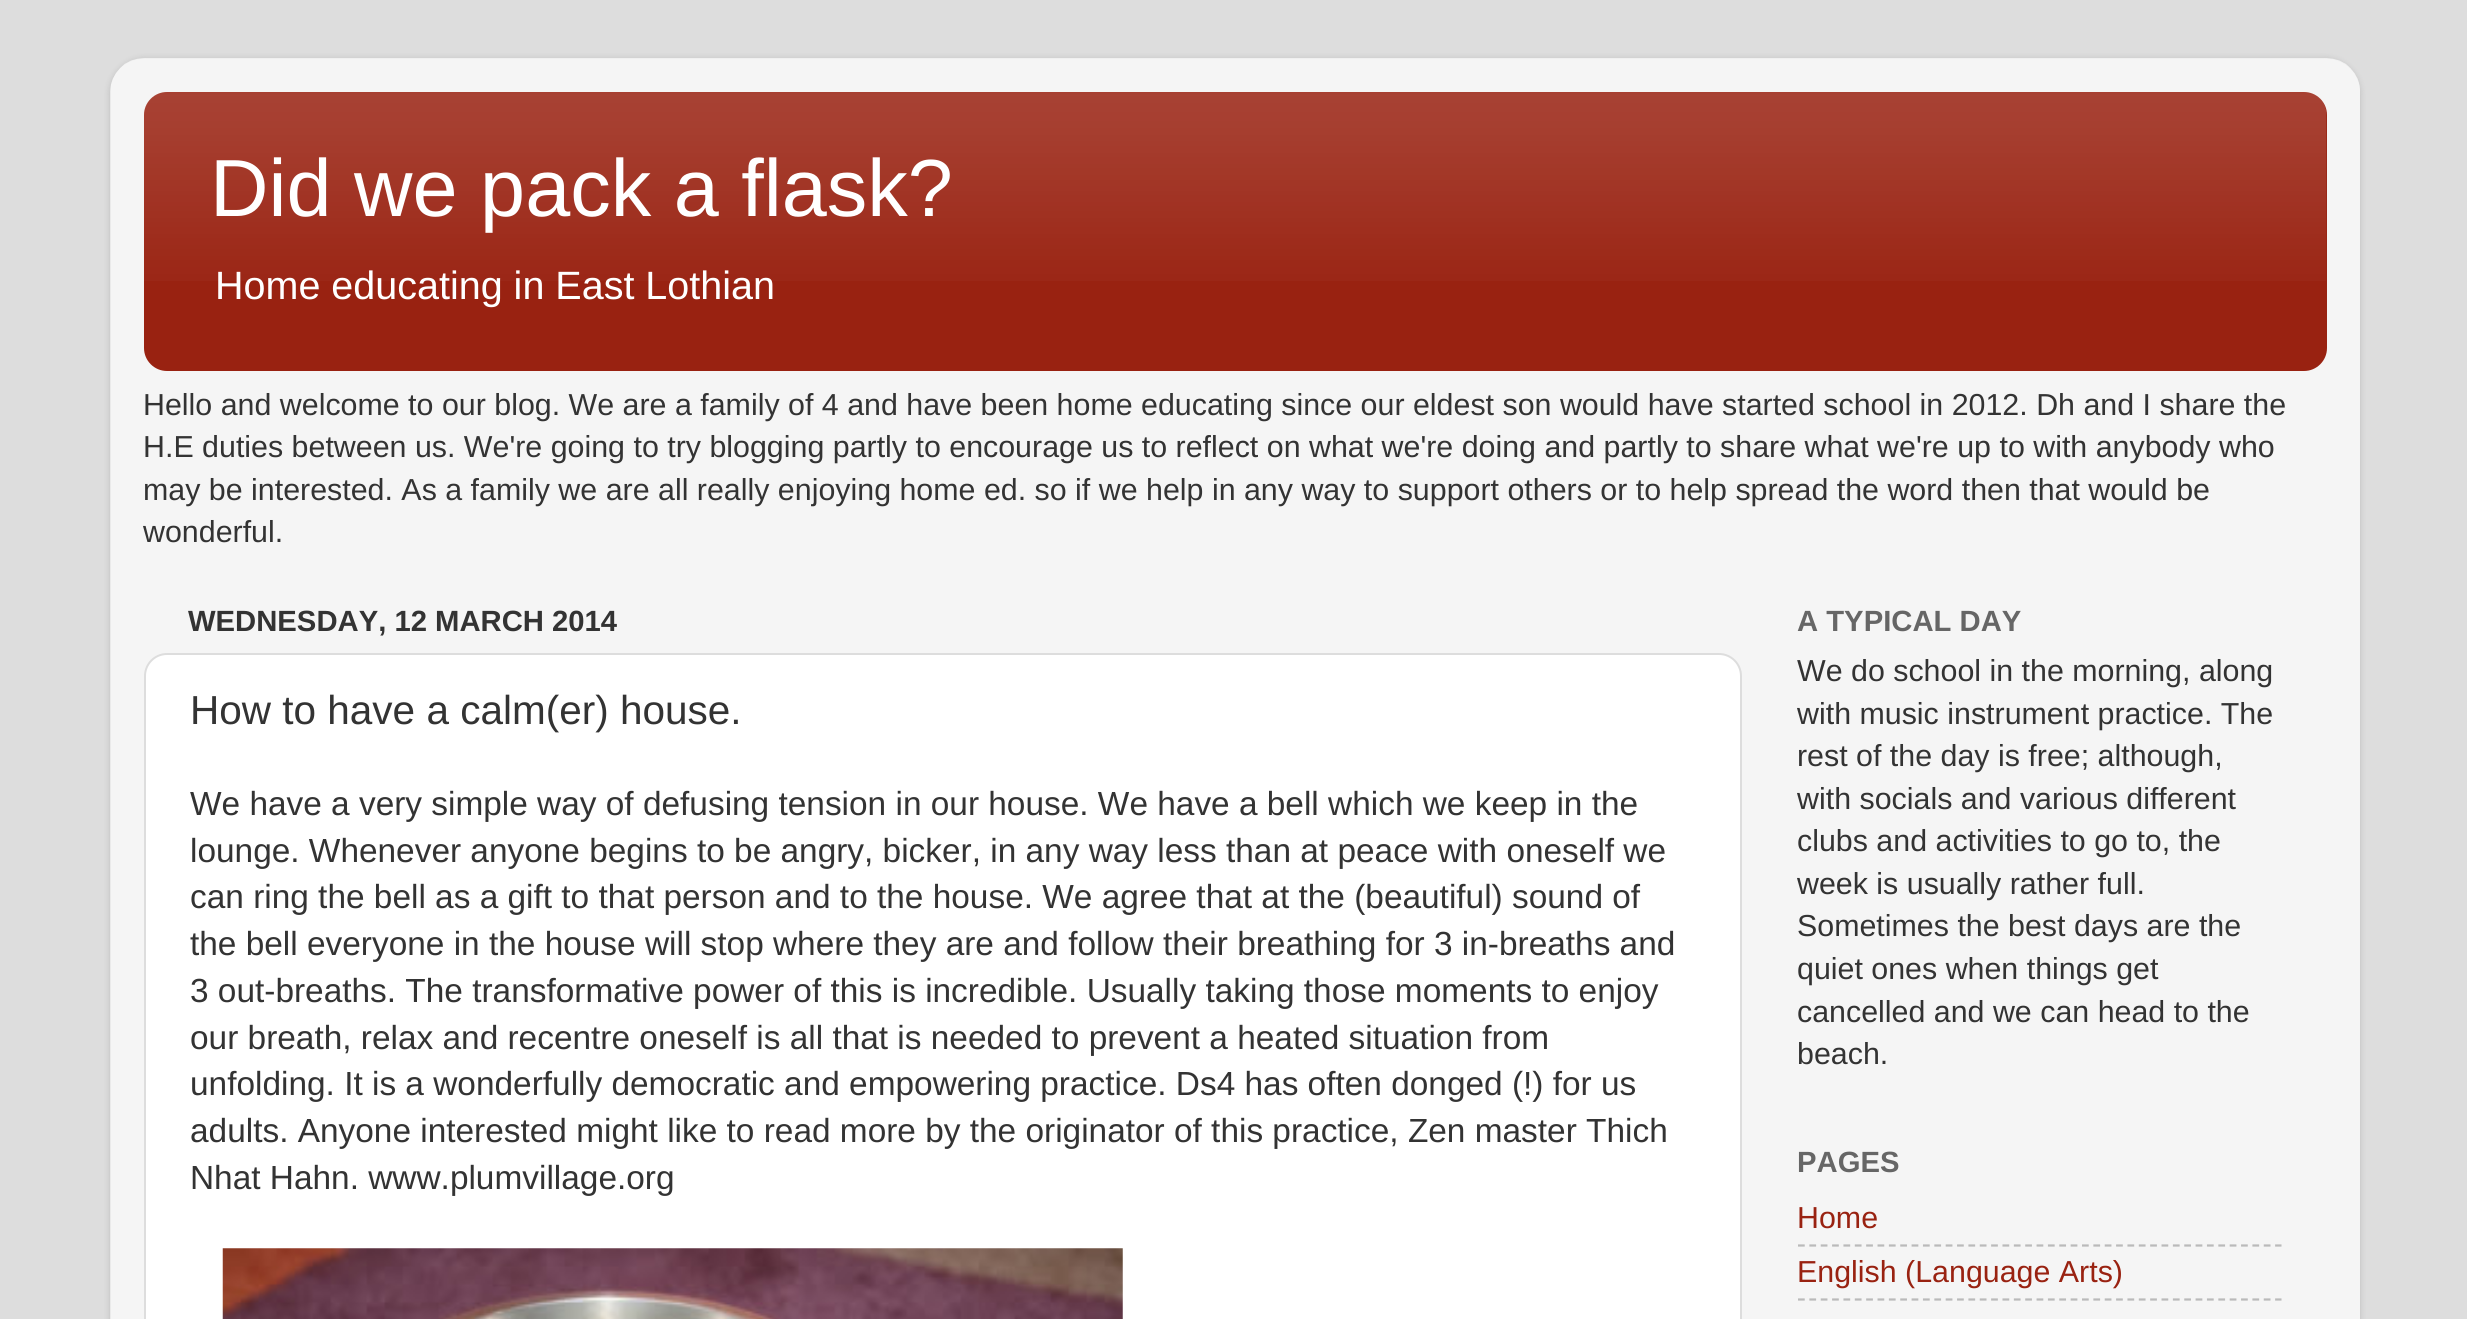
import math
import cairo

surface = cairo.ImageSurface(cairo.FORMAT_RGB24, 2467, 1319)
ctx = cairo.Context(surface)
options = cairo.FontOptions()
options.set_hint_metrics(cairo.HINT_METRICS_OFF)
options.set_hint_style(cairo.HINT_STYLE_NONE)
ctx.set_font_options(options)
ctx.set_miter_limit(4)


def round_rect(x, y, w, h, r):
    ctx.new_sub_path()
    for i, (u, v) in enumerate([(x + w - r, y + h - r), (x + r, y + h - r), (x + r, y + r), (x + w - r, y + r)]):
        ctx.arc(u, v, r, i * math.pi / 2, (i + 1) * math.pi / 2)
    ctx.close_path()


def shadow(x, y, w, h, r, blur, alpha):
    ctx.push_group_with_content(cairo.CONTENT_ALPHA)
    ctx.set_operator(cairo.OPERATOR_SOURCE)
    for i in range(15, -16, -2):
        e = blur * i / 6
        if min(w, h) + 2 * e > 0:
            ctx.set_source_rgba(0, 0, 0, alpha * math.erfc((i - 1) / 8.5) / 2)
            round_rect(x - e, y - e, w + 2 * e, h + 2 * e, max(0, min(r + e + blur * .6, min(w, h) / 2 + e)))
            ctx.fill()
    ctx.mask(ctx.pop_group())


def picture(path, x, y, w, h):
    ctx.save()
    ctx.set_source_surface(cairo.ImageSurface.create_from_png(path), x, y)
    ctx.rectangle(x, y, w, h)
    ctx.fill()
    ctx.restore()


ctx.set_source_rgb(0.867, 0.867, 0.867)
ctx.paint()
ctx.save()
ctx.set_fill_rule(cairo.FILL_RULE_EVEN_ODD)
ctx.new_path()
ctx.move_to(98, 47)
ctx.line_to(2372, 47)
ctx.line_to(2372, 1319)
ctx.line_to(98, 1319)
ctx.close_path()
ctx.move_to(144, 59)
ctx.line_to(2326, 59)
ctx.curve_to(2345, 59, 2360, 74, 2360, 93)
ctx.line_to(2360, 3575)
ctx.curve_to(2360, 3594, 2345, 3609, 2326, 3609)
ctx.line_to(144, 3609)
ctx.curve_to(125, 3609, 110, 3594, 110, 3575)
ctx.line_to(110, 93)
ctx.curve_to(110, 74, 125, 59, 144, 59)
ctx.close_path()
ctx.clip()
ctx.set_source_rgb(0, 0, 0)
shadow(110, 59, 2250, 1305, 34, 3.5, 0.15)
ctx.restore()
picture("img1.png", 110, 58, 2250, 1261)
ctx.set_source_rgb(0.6, 0.133, 0.067)
round_rect(144, 92, 2183, 279, 23)
ctx.fill()
picture("img2.png", 144, 92, 2183, 189)
ctx.select_font_face("Liberation Sans")
ctx.set_font_size(81)
ctx.set_source_rgb(1, 1, 1)
ctx.move_to(210, 216)
ctx.show_text("Did we pack a flask?")
ctx.set_font_size(39.5)
ctx.move_to(215, 299)
ctx.show_text("Home educating in East Lothian")
ctx.set_font_size(30.38)
ctx.set_source_rgb(0.2, 0.2, 0.2)
ctx.move_to(143, 415)
ctx.show_text("Hello and welcome to our blog. We are a family of 4 and have been home educating since our eldest son would have started school in 2012. Dh and I share the")
ctx.move_to(143, 457)
ctx.show_text("H.E duties between us. We're going to try blogging partly to encourage us to reflect on what we're doing and partly to share what we're up to with anybody who")
ctx.move_to(143, 500)
ctx.show_text("may be interested. As a family we are all really enjoying home ed. so if we help in any way to support others or to help spread the word then that would be")
ctx.move_to(143, 542)
ctx.show_text("wonderful.")
ctx.select_font_face("Liberation Sans", cairo.FONT_SLANT_NORMAL, cairo.FONT_WEIGHT_BOLD)
ctx.set_font_size(29.25)
ctx.move_to(188, 631)
ctx.show_text("WEDNESDAY, 12 MARCH 2014")
ctx.set_source_rgb(1, 1, 1)
round_rect(145, 654, 1596, 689, 22)
ctx.fill_preserve()
ctx.set_source_rgb(0.867, 0.867, 0.867)
ctx.stroke()
ctx.select_font_face("Liberation Sans")
ctx.set_font_size(40.5)
ctx.set_source_rgb(0.2, 0.2, 0.2)
ctx.move_to(190, 724)
ctx.show_text("How to have a calm(er) house.")
ctx.set_font_size(33.4)
ctx.move_to(190, 815)
ctx.show_text("We have a very simple way of defusing tension in our house. We have a bell which we keep in the")
ctx.move_to(190, 862)
ctx.show_text("lounge. Whenever anyone begins to be angry, bicker, in any way less than at peace with oneself we")
ctx.move_to(190, 908)
ctx.show_text("can ring the bell as a gift to that person and to the house. We agree that at the (beautiful) sound of")
ctx.move_to(190, 955)
ctx.show_text("the bell everyone in the house will stop where they are and follow their breathing for 3 in-breaths and")
ctx.move_to(190, 1002)
ctx.show_text("3 out-breaths. The transformative power of this is incredible. Usually taking those moments to enjoy")
ctx.move_to(190, 1049)
ctx.show_text("our breath, relax and recentre oneself is all that is needed to prevent a heated situation from")
ctx.move_to(190, 1095)
ctx.show_text("unfolding. It is a wonderfully democratic and empowering practice. Ds4 has often donged (!) for us")
ctx.move_to(190, 1142)
ctx.show_text("adults. Anyone interested might like to read more by the originator of this practice, Zen master Thich")
ctx.move_to(190, 1189)
ctx.show_text("Nhat Hahn. www.plumvillage.org")
picture("img3.png", 222, 1248, 901, 71)
ctx.select_font_face("Liberation Sans", cairo.FONT_SLANT_NORMAL, cairo.FONT_WEIGHT_BOLD)
ctx.set_font_size(29.25)
ctx.set_source_rgb(0.4, 0.4, 0.4)
ctx.move_to(1797, 631)
ctx.show_text("A TYPICAL DAY")
ctx.select_font_face("Liberation Sans")
ctx.set_font_size(30.38)
ctx.set_source_rgb(0.2, 0.2, 0.2)
ctx.move_to(1797, 681)
ctx.show_text("We do school in the morning, along")
ctx.move_to(1797, 724)
ctx.show_text("with music instrument practice. The")
ctx.move_to(1797, 766)
ctx.show_text("rest of the day is free; although,")
ctx.move_to(1797, 809)
ctx.show_text("with socials and various different")
ctx.move_to(1797, 851)
ctx.show_text("clubs and activities to go to, the")
ctx.move_to(1797, 894)
ctx.show_text("week is usually rather full.")
ctx.move_to(1797, 936)
ctx.show_text("Sometimes the best days are the")
ctx.move_to(1797, 979)
ctx.show_text("quiet ones when things get")
ctx.move_to(1797, 1022)
ctx.show_text("cancelled and we can head to the")
ctx.move_to(1797, 1064)
ctx.show_text("beach.")
ctx.select_font_face("Liberation Sans", cairo.FONT_SLANT_NORMAL, cairo.FONT_WEIGHT_BOLD)
ctx.set_font_size(29.25)
ctx.set_source_rgb(0.4, 0.4, 0.4)
ctx.move_to(1797, 1172)
ctx.show_text("PAGES")
ctx.select_font_face("Liberation Sans")
ctx.set_font_size(30.38)
ctx.set_source_rgb(0.6, 0.133, 0.067)
ctx.move_to(1797, 1228)
ctx.show_text("Home")
ctx.new_path()
ctx.move_to(1798, 1245.5)
ctx.line_to(2281.5, 1245.5)
ctx.set_source_rgb(0.729, 0.729, 0.729)
ctx.set_line_width(2.2)
ctx.set_dash([6.75, 4.61])
ctx.stroke()
ctx.set_source_rgb(0.6, 0.133, 0.067)
ctx.move_to(1797, 1282)
ctx.show_text("English (Language Arts)")
ctx.new_path()
ctx.move_to(1798, 1299.5)
ctx.line_to(2281.5, 1299.5)
ctx.set_source_rgb(0.729, 0.729, 0.729)
ctx.stroke()
surface.write_to_png("page.png")
